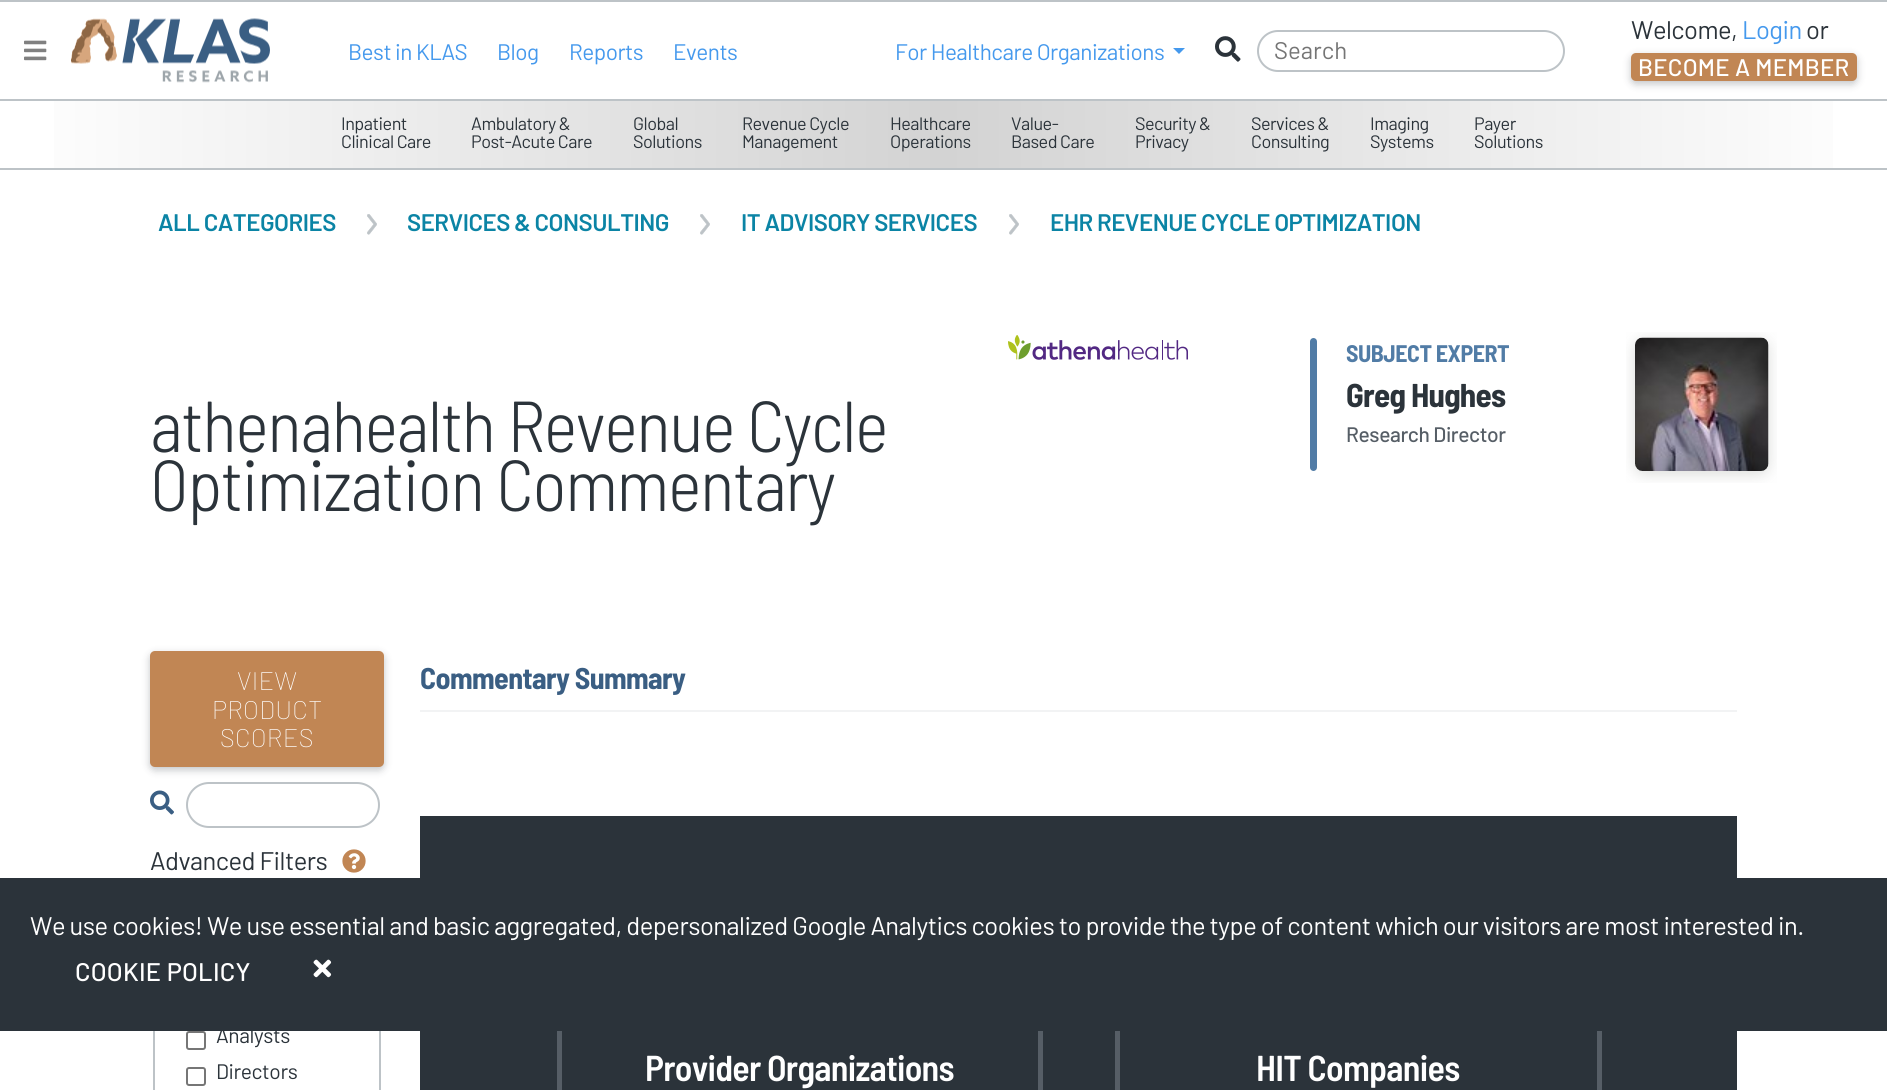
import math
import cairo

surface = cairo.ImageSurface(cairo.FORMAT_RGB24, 1887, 1090)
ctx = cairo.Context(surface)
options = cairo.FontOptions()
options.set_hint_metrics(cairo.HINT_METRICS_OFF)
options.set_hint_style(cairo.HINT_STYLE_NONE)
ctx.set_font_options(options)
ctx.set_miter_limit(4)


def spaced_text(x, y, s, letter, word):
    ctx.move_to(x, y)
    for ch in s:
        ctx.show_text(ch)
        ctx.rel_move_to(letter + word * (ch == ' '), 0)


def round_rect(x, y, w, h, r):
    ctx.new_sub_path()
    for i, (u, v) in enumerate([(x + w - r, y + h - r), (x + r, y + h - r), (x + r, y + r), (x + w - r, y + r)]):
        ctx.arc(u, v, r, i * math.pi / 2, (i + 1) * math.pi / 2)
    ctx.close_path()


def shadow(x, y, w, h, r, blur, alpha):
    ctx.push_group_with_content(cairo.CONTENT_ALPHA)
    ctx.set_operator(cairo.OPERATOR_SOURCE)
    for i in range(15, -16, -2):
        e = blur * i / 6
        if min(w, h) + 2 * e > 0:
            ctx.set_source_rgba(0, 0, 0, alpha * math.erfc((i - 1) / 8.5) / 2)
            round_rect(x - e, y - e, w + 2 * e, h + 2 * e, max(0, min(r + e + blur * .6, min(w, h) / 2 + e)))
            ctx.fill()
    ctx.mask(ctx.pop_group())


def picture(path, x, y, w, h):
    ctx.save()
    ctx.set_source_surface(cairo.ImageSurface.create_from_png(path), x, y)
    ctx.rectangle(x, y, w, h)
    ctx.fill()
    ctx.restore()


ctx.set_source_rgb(1, 1, 1)
ctx.paint()
ctx.set_source_rgb(0.741, 0.765, 0.78)
ctx.rectangle(0, 0, 1887, 2)
ctx.fill()
ctx.rectangle(0, 99, 1887, 2)
ctx.fill()
picture("img1.png", 24, 40, 23, 21)
picture("img2.png", 71, 18, 199, 65)
ctx.select_font_face("Barlow")
ctx.set_font_size(22.5)
ctx.set_source_rgb(0.271, 0.6, 0.929)
spaced_text(348, 60, "Best in KLAS", -0.51, 0)
spaced_text(497, 60, "Blog", -0.51, 0)
spaced_text(569, 60, "Reports", -0.51, 0)
spaced_text(673, 60, "Events", -0.51, 0)
spaced_text(895, 60, "For Healthcare Organizations", -0.51, 0)
ctx.new_path()
ctx.move_to(1173, 48)
ctx.line_to(1185, 48)
ctx.line_to(1179, 54)
ctx.close_path()
ctx.fill()
picture("img3.png", 1215, 36, 26, 26)
round_rect(1258, 31, 306, 40, 20)
ctx.set_source_rgb(0.741, 0.765, 0.78)
ctx.stroke()
ctx.set_font_size(24)
ctx.set_source_rgb(0.459, 0.459, 0.459)
ctx.move_to(1274, 59)
ctx.show_text("Search")
ctx.set_font_size(25.5)
ctx.set_source_rgb(0.169, 0.2, 0.227)
spaced_text(1631, 39, "Welcome,", -0.51, 0)
ctx.set_source_rgb(0.271, 0.6, 0.929)
spaced_text(1742, 39, "Login", -0.51, 0)
ctx.set_source_rgb(0.169, 0.2, 0.227)
spaced_text(1806, 39, "or", -0.51, 0)
ctx.set_source_rgb(0.063, 0.094, 0.125)
shadow(1631, 56, 226, 28, 5, 4, 0.25)
ctx.set_source_rgb(0.757, 0.525, 0.329)
round_rect(1631, 53, 226, 28, 5)
ctx.fill()
ctx.select_font_face("Barlow Medium")
ctx.set_font_size(24)
ctx.set_source_rgb(1, 1, 1)
spaced_text(1638, 76, "BECOME A MEMBER", 0.25, 0)
gradient = cairo.LinearGradient(0, 135, 1887, 135)
gradient.add_color_stop_rgba(0, 1, 1, 1, 1)
gradient.add_color_stop_rgba(0.5, 0.827, 0.827, 0.827, 1)
gradient.add_color_stop_rgba(1, 1, 1, 1, 1)
ctx.set_source(gradient)
ctx.rectangle(54, 101, 1779, 67)
ctx.fill()
ctx.set_source_rgb(0.741, 0.765, 0.78)
ctx.rectangle(0, 168, 1887, 2)
ctx.fill()
ctx.select_font_face("Barlow")
ctx.set_font_size(18)
ctx.set_source_rgb(0.169, 0.2, 0.227)
spaced_text(341, 130, "Inpatient", -0.51, 0)
spaced_text(341, 148, "Clinical Care", -0.51, 0)
spaced_text(471, 130, "Ambulatory &", -0.51, 0)
spaced_text(471, 148, "Post-Acute Care", -0.51, 0)
spaced_text(633, 130, "Global", -0.51, 0)
spaced_text(633, 148, "Solutions", -0.51, 0)
spaced_text(742, 130, "Revenue Cycle", -0.51, 0)
spaced_text(742, 148, "Management", -0.51, 0)
spaced_text(890, 130, "Healthcare", -0.51, 0)
spaced_text(890, 148, "Operations", -0.51, 0)
spaced_text(1011, 130, "Value-", -0.51, 0)
spaced_text(1011, 148, "Based Care", -0.51, 0)
spaced_text(1135, 130, "Security &", -0.51, 0)
spaced_text(1135, 148, "Privacy", -0.51, 0)
spaced_text(1251, 130, "Services &", -0.51, 0)
spaced_text(1251, 148, "Consulting", -0.51, 0)
spaced_text(1370, 130, "Imaging", -0.51, 0)
spaced_text(1370, 148, "Systems", -0.51, 0)
spaced_text(1474, 130, "Payer", -0.51, 0)
spaced_text(1474, 148, "Solutions", -0.51, 0)
ctx.select_font_face("Barlow SemiBold")
ctx.set_font_size(24)
ctx.set_source_rgb(0.043, 0.518, 0.647)
spaced_text(158, 231, "ALL CATEGORIES", -0.51, 0)
picture("img4.png", 367, 214, 10, 21)
spaced_text(407, 231, "SERVICES & CONSULTING", -0.51, 0)
picture("img4.png", 700, 214, 10, 21)
spaced_text(741, 231, "IT ADVISORY SERVICES", -0.51, 0)
picture("img4.png", 1009, 214, 10, 21)
spaced_text(1050, 231, "EHR REVENUE CYCLE OPTIMIZATION", -0.51, 0)
picture("img5.png", 1008, 335, 180, 25)
ctx.select_font_face("Barlow Semi Condensed Light")
ctx.set_font_size(72)
ctx.set_source_rgb(0.169, 0.2, 0.227)
spaced_text(150, 452, "athenahealth Revenue Cycle", -1.45, 0)
spaced_text(150, 511, "Optimization Commentary", -1.45, 0)
ctx.set_source_rgb(0.318, 0.486, 0.651)
round_rect(1310, 338, 7, 133, 3.5)
ctx.fill()
ctx.select_font_face("Barlow Semi Condensed", cairo.FONT_SLANT_NORMAL, cairo.FONT_WEIGHT_BOLD)
ctx.set_font_size(24)
spaced_text(1346, 362, "SUBJECT EXPERT", -0.5, 0)
ctx.set_font_size(33)
ctx.set_source_rgb(0.169, 0.2, 0.227)
spaced_text(1346, 407, "Greg Hughes", -0.75, 0)
ctx.select_font_face("Barlow Medium")
ctx.set_font_size(21)
ctx.set_source_rgb(0.337, 0.369, 0.4)
spaced_text(1346, 442, "Research Director", -0.4, 0)
picture("img6.png", 1626, 332, 151, 151)
ctx.set_source_rgb(0.063, 0.094, 0.125)
shadow(150, 654, 234, 116, 5, 4, 0.25)
ctx.set_source_rgb(0.757, 0.525, 0.329)
round_rect(150, 651, 234, 116, 5)
ctx.fill()
ctx.select_font_face("Barlow Thin")
ctx.set_font_size(25.5)
ctx.set_source_rgb(1, 1, 1)
spaced_text(237, 690, "VIEW", 0.25, 0)
spaced_text(212, 719, "PRODUCT", 0.25, 0)
spaced_text(220, 747, "SCORES", 0.25, 0)
picture("img7.png", 150, 790, 24, 25)
round_rect(187, 783, 192, 44, 22)
ctx.set_source_rgb(0.741, 0.765, 0.78)
ctx.stroke()
ctx.select_font_face("Barlow")
ctx.set_source_rgb(0.169, 0.2, 0.227)
spaced_text(150, 870, "Advanced Filters", -0.51, 0)
picture("img8.png", 342, 849, 24, 24)
ctx.rectangle(154, 882, 226, 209)
ctx.set_source_rgb(0.741, 0.765, 0.78)
ctx.stroke()
round_rect(187, 1032, 18, 17, 2)
ctx.set_source_rgb(0.463, 0.463, 0.463)
ctx.stroke()
ctx.set_font_size(21)
ctx.set_source_rgb(0.169, 0.2, 0.227)
spaced_text(216, 1043, "Analysts", -0.4, 0)
round_rect(187, 1068, 18, 17, 2)
ctx.set_source_rgb(0.463, 0.463, 0.463)
ctx.stroke()
ctx.set_source_rgb(0.169, 0.2, 0.227)
spaced_text(216, 1079, "Directors", -0.4, 0)
ctx.set_source_rgb(0.949, 0.953, 0.957)
ctx.rectangle(420, 710, 1317, 2)
ctx.fill()
ctx.select_font_face("Barlow Semi Condensed", cairo.FONT_SLANT_NORMAL, cairo.FONT_WEIGHT_BOLD)
ctx.set_font_size(30)
ctx.set_source_rgb(0.227, 0.369, 0.514)
spaced_text(420, 689, "Commentary Summary", -0.6, 0)
ctx.set_source_rgb(0.169, 0.2, 0.227)
ctx.rectangle(420, 816, 1317, 274)
ctx.fill()
ctx.rectangle(559.5, 1019.5, 481, 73)
ctx.set_source_rgb(0.337, 0.369, 0.4)
ctx.set_line_width(5)
ctx.stroke()
ctx.select_font_face("Barlow Semi Condensed SemiBold")
ctx.set_font_size(36)
ctx.set_source_rgb(1, 1, 1)
spaced_text(645, 1081, "Provider Organizations", -0.75, 0)
ctx.rectangle(1117.5, 1019.5, 482, 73)
ctx.set_source_rgb(0.337, 0.369, 0.4)
ctx.stroke()
ctx.set_source_rgb(1, 1, 1)
spaced_text(1256, 1081, "HIT Companies", -0.75, 0)
ctx.set_source_rgb(0.169, 0.2, 0.227)
ctx.rectangle(0, 878, 1887, 153)
ctx.fill()
ctx.select_font_face("Barlow")
ctx.set_font_size(25.5)
ctx.set_source_rgb(1, 1, 1)
spaced_text(30, 935, "We use cookies! We use essential and basic aggregated, depersonalized Google Analytics cookies to provide the type of content which our visitors are most interested in.", -0.51, 0)
ctx.select_font_face("Barlow Medium")
spaced_text(75, 981, "COOKIE POLICY", 0.25, 0)
picture("img9.png", 313, 959, 19, 19)
surface.write_to_png("page.png")
